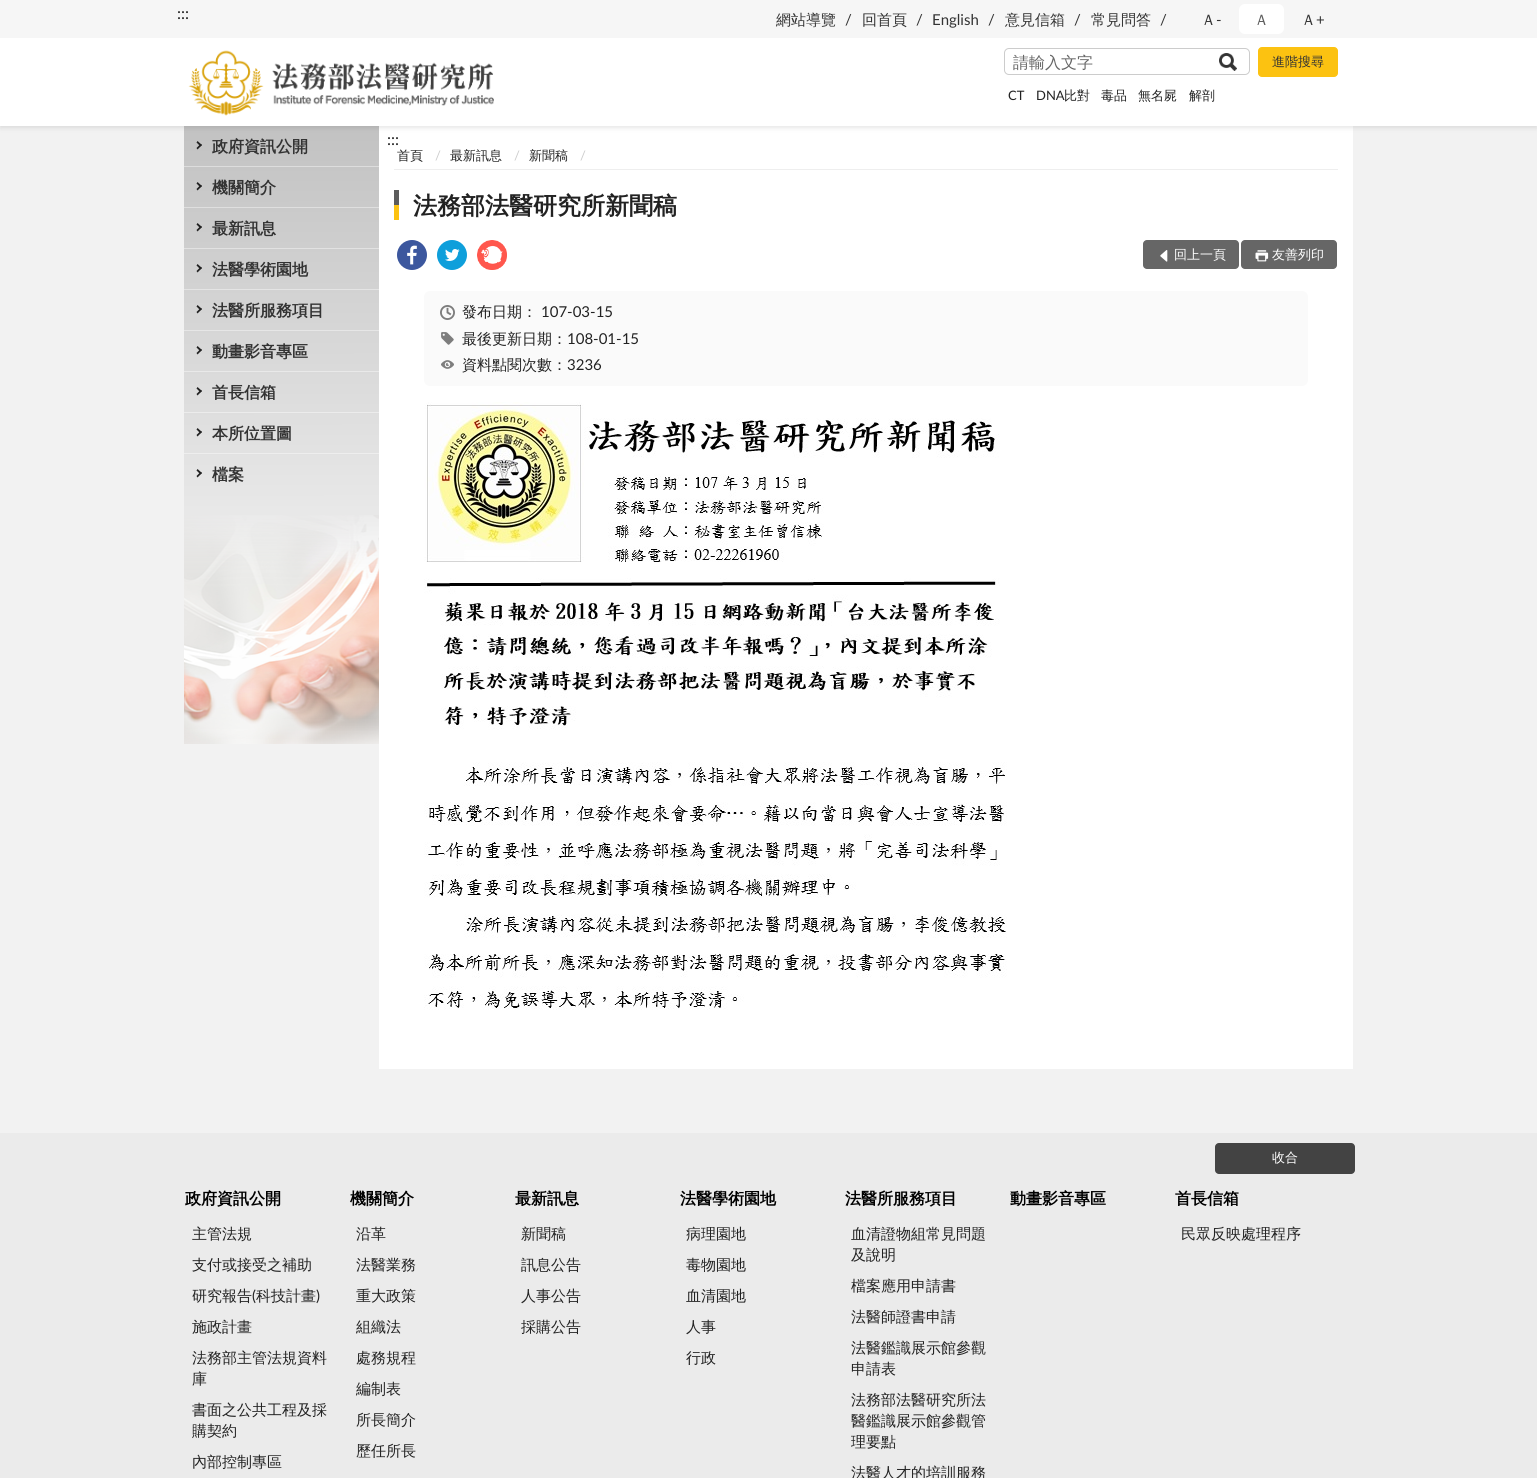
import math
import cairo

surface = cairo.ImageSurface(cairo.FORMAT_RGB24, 1537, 1478)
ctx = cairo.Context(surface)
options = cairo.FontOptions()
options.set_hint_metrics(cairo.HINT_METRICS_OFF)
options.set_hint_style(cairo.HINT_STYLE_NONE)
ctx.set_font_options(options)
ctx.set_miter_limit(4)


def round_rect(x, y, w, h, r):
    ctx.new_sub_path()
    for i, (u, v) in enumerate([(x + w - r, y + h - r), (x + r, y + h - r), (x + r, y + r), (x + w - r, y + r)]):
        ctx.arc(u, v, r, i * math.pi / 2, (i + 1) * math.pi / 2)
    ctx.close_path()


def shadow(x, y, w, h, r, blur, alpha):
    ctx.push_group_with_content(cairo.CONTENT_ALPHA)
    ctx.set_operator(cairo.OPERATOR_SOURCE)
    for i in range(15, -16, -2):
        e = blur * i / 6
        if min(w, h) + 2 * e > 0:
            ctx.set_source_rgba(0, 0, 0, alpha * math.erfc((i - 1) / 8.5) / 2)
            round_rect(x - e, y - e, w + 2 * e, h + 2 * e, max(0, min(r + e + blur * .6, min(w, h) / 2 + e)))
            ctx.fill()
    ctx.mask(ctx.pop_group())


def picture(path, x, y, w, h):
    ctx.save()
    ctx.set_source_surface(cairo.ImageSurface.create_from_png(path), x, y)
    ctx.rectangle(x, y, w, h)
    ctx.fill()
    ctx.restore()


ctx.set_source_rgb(0.949, 0.949, 0.949)
ctx.paint()
gradient = cairo.LinearGradient(281, 126, 282, 744)
gradient.add_color_stop_rgba(0, 0.761, 0.761, 0.761, 1)
gradient.add_color_stop_rgba(1, 1, 1, 1, 1)
ctx.set_source(gradient)
ctx.rectangle(184, 126, 195, 618)
ctx.fill()
ctx.set_source_rgb(1, 1, 1)
ctx.rectangle(379, 126, 974, 943)
ctx.fill()
ctx.set_source_rgb(0, 0, 0)
shadow(0, 2, 1537, 126, 0, 2.5, 0.1)
ctx.set_source_rgb(1, 1, 1)
ctx.rectangle(0, 38, 1537, 88)
ctx.fill()
ctx.set_source_rgb(0.961, 0.961, 0.961)
ctx.rectangle(0, 0, 1537, 38)
ctx.fill()
ctx.select_font_face("Lato")
ctx.set_font_size(16)
ctx.set_source_rgb(0.133, 0.133, 0.133)
ctx.move_to(177, 19)
ctx.show_text(":::")
ctx.select_font_face("WenQuanYi Zen Hei Medium")
ctx.set_font_size(15)
ctx.set_source_rgb(0.2, 0.2, 0.2)
ctx.move_to(776, 25)
ctx.show_text("網站導覽")
ctx.select_font_face("Lato")
ctx.move_to(845, 25)
ctx.show_text("/")
ctx.select_font_face("WenQuanYi Zen Hei Medium")
ctx.move_to(862, 25)
ctx.show_text("回首頁")
ctx.select_font_face("Lato")
ctx.move_to(916, 25)
ctx.show_text("/")
ctx.move_to(932, 25)
ctx.show_text("English")
ctx.move_to(988, 25)
ctx.show_text("/")
ctx.select_font_face("WenQuanYi Zen Hei Medium")
ctx.move_to(1005, 25)
ctx.show_text("意見信箱")
ctx.select_font_face("Lato")
ctx.move_to(1074, 25)
ctx.show_text("/")
ctx.select_font_face("WenQuanYi Zen Hei Medium")
ctx.move_to(1091, 25)
ctx.show_text("常見問答")
ctx.select_font_face("Lato")
ctx.move_to(1160, 25)
ctx.show_text("/")
ctx.select_font_face("WenQuanYi Zen Hei Medium")
ctx.move_to(1201, 25)
ctx.show_text("Ａ")
ctx.select_font_face("Lato")
ctx.move_to(1216, 25)
ctx.show_text("-")
ctx.set_source_rgb(1, 1, 1)
round_rect(1239, 4, 45, 30, 6)
ctx.fill()
ctx.select_font_face("WenQuanYi Zen Hei Medium")
ctx.set_source_rgb(0.361, 0.361, 0.361)
ctx.move_to(1254, 25)
ctx.show_text("Ａ")
ctx.set_source_rgb(0.2, 0.2, 0.2)
ctx.move_to(1301, 25)
ctx.show_text("Ａ")
ctx.select_font_face("Lato")
ctx.move_to(1316, 25)
ctx.show_text("+")
picture("img1.png", 188, 50, 306, 66)
round_rect(1004.5, 48.5, 245, 26, 4.5)
ctx.set_source_rgb(0.8, 0.8, 0.8)
ctx.set_line_width(1)
ctx.stroke()
ctx.select_font_face("WenQuanYi Zen Hei Medium")
ctx.set_font_size(16)
ctx.set_source_rgb(0.4, 0.4, 0.4)
ctx.move_to(1013, 68)
ctx.show_text("請輸入文字")
picture("img2.png", 1219, 53, 18, 18)
ctx.set_source_rgb(0.988, 0.761, 0.067)
round_rect(1258.5, 47.5, 79, 29, 3.5)
ctx.fill_preserve()
ctx.stroke()
ctx.set_font_size(13)
ctx.set_source_rgb(0.2, 0.2, 0.2)
ctx.move_to(1272, 66)
ctx.show_text("進階搜尋")
ctx.select_font_face("Lato")
ctx.set_source_rgb(0.133, 0.133, 0.133)
ctx.move_to(1008, 100)
ctx.show_text("CT")
ctx.move_to(1036, 100)
ctx.show_text("DNA")
ctx.select_font_face("WenQuanYi Zen Hei Medium")
ctx.move_to(1064, 100)
ctx.show_text("比對")
ctx.move_to(1101, 100)
ctx.show_text("毒品")
ctx.move_to(1138, 100)
ctx.show_text("無名屍")
ctx.move_to(1189, 100)
ctx.show_text("解剖")
ctx.set_source_rgb(0.867, 0.867, 0.867)
ctx.rectangle(184, 166, 195, 1)
ctx.fill()
ctx.set_source_rgb(0.133, 0.133, 0.133)
ctx.new_path()
ctx.move_to(196.5, 142.5)
ctx.line_to(197.5, 141)
ctx.line_to(202, 145)
ctx.line_to(200.5, 146.5)
ctx.close_path()
ctx.fill()
ctx.new_path()
ctx.move_to(196.5, 148)
ctx.line_to(200.5, 144)
ctx.line_to(202, 145)
ctx.line_to(197.5, 149.5)
ctx.close_path()
ctx.fill()
ctx.select_font_face("WenQuanYi Zen Hei", cairo.FONT_SLANT_NORMAL, cairo.FONT_WEIGHT_BOLD)
ctx.set_font_size(16)
ctx.set_source_rgb(0.2, 0.2, 0.2)
ctx.move_to(212, 152)
ctx.show_text("政府資訊公開")
ctx.set_source_rgb(0.875, 0.875, 0.875)
ctx.rectangle(184, 207, 195, 1)
ctx.fill()
ctx.set_source_rgb(0.133, 0.133, 0.133)
ctx.new_path()
ctx.move_to(196.5, 183.5)
ctx.line_to(197.5, 182)
ctx.line_to(202, 186)
ctx.line_to(200.5, 187.5)
ctx.close_path()
ctx.fill()
ctx.new_path()
ctx.move_to(196.5, 189)
ctx.line_to(200.5, 185)
ctx.line_to(202, 186)
ctx.line_to(197.5, 190.5)
ctx.close_path()
ctx.fill()
ctx.set_source_rgb(0.2, 0.2, 0.2)
ctx.move_to(212, 193)
ctx.show_text("機關簡介")
ctx.set_source_rgb(0.886, 0.886, 0.886)
ctx.rectangle(184, 248, 195, 1)
ctx.fill()
ctx.set_source_rgb(0.133, 0.133, 0.133)
ctx.new_path()
ctx.move_to(196.5, 224.5)
ctx.line_to(197.5, 223)
ctx.line_to(202, 227)
ctx.line_to(200.5, 228.5)
ctx.close_path()
ctx.fill()
ctx.new_path()
ctx.move_to(196.5, 230)
ctx.line_to(200.5, 226)
ctx.line_to(202, 227)
ctx.line_to(197.5, 231.5)
ctx.close_path()
ctx.fill()
ctx.set_source_rgb(0.2, 0.2, 0.2)
ctx.move_to(212, 234)
ctx.show_text("最新訊息")
ctx.set_source_rgb(0.894, 0.894, 0.894)
ctx.rectangle(184, 289, 195, 1)
ctx.fill()
ctx.set_source_rgb(0.133, 0.133, 0.133)
ctx.new_path()
ctx.move_to(196.5, 265.5)
ctx.line_to(197.5, 264)
ctx.line_to(202, 268)
ctx.line_to(200.5, 269.5)
ctx.close_path()
ctx.fill()
ctx.new_path()
ctx.move_to(196.5, 271)
ctx.line_to(200.5, 267)
ctx.line_to(202, 268)
ctx.line_to(197.5, 272.5)
ctx.close_path()
ctx.fill()
ctx.set_source_rgb(0.2, 0.2, 0.2)
ctx.move_to(212, 275)
ctx.show_text("法醫學術園地")
ctx.set_source_rgb(0.902, 0.902, 0.902)
ctx.rectangle(184, 330, 195, 1)
ctx.fill()
ctx.set_source_rgb(0.133, 0.133, 0.133)
ctx.new_path()
ctx.move_to(196.5, 306.5)
ctx.line_to(197.5, 305)
ctx.line_to(202, 309)
ctx.line_to(200.5, 310.5)
ctx.close_path()
ctx.fill()
ctx.new_path()
ctx.move_to(196.5, 312)
ctx.line_to(200.5, 308)
ctx.line_to(202, 309)
ctx.line_to(197.5, 313.5)
ctx.close_path()
ctx.fill()
ctx.set_source_rgb(0.2, 0.2, 0.2)
ctx.move_to(212, 316)
ctx.show_text("法醫所服務項目")
ctx.set_source_rgb(0.914, 0.914, 0.914)
ctx.rectangle(184, 371, 195, 1)
ctx.fill()
ctx.set_source_rgb(0.133, 0.133, 0.133)
ctx.new_path()
ctx.move_to(196.5, 347.5)
ctx.line_to(197.5, 346)
ctx.line_to(202, 350)
ctx.line_to(200.5, 351.5)
ctx.close_path()
ctx.fill()
ctx.new_path()
ctx.move_to(196.5, 353)
ctx.line_to(200.5, 349)
ctx.line_to(202, 350)
ctx.line_to(197.5, 354.5)
ctx.close_path()
ctx.fill()
ctx.set_source_rgb(0.2, 0.2, 0.2)
ctx.move_to(212, 357)
ctx.show_text("動畫影音專區")
ctx.set_source_rgb(0.922, 0.922, 0.922)
ctx.rectangle(184, 412, 195, 1)
ctx.fill()
ctx.set_source_rgb(0.133, 0.133, 0.133)
ctx.new_path()
ctx.move_to(196.5, 388.5)
ctx.line_to(197.5, 387)
ctx.line_to(202, 391)
ctx.line_to(200.5, 392.5)
ctx.close_path()
ctx.fill()
ctx.new_path()
ctx.move_to(196.5, 394)
ctx.line_to(200.5, 390)
ctx.line_to(202, 391)
ctx.line_to(197.5, 395.5)
ctx.close_path()
ctx.fill()
ctx.set_source_rgb(0.2, 0.2, 0.2)
ctx.move_to(212, 398)
ctx.show_text("首長信箱")
ctx.set_source_rgb(0.933, 0.933, 0.933)
ctx.rectangle(184, 453, 195, 1)
ctx.fill()
ctx.set_source_rgb(0.133, 0.133, 0.133)
ctx.new_path()
ctx.move_to(196.5, 429.5)
ctx.line_to(197.5, 428)
ctx.line_to(202, 432)
ctx.line_to(200.5, 433.5)
ctx.close_path()
ctx.fill()
ctx.new_path()
ctx.move_to(196.5, 435)
ctx.line_to(200.5, 431)
ctx.line_to(202, 432)
ctx.line_to(197.5, 436.5)
ctx.close_path()
ctx.fill()
ctx.set_source_rgb(0.2, 0.2, 0.2)
ctx.move_to(212, 439)
ctx.show_text("本所位置圖")
ctx.set_source_rgb(0.133, 0.133, 0.133)
ctx.new_path()
ctx.move_to(196.5, 470.5)
ctx.line_to(197.5, 469)
ctx.line_to(202, 473)
ctx.line_to(200.5, 474.5)
ctx.close_path()
ctx.fill()
ctx.new_path()
ctx.move_to(196.5, 476)
ctx.line_to(200.5, 472)
ctx.line_to(202, 473)
ctx.line_to(197.5, 477.5)
ctx.close_path()
ctx.fill()
ctx.set_source_rgb(0.2, 0.2, 0.2)
ctx.move_to(212, 480)
ctx.show_text("檔案")
picture("img3.png", 184, 515, 195, 229)
ctx.select_font_face("Lato")
ctx.set_source_rgb(0.133, 0.133, 0.133)
ctx.move_to(387, 145)
ctx.show_text(":::")
ctx.set_source_rgb(0.933, 0.933, 0.933)
ctx.rectangle(394, 169, 944, 1)
ctx.fill()
ctx.select_font_face("WenQuanYi Zen Hei Medium")
ctx.set_font_size(13)
ctx.set_source_rgb(0.133, 0.133, 0.133)
ctx.move_to(397, 160)
ctx.show_text("首頁")
ctx.select_font_face("Lato")
ctx.set_source_rgb(0.8, 0.8, 0.8)
ctx.move_to(435, 160)
ctx.show_text("/")
ctx.select_font_face("WenQuanYi Zen Hei Medium")
ctx.set_source_rgb(0.133, 0.133, 0.133)
ctx.move_to(450, 160)
ctx.show_text("最新訊息")
ctx.select_font_face("Lato")
ctx.set_source_rgb(0.8, 0.8, 0.8)
ctx.move_to(514, 160)
ctx.show_text("/")
ctx.select_font_face("WenQuanYi Zen Hei Medium")
ctx.set_source_rgb(0.133, 0.133, 0.133)
ctx.move_to(529, 160)
ctx.show_text("新聞稿")
ctx.select_font_face("Lato")
ctx.set_source_rgb(0.8, 0.8, 0.8)
ctx.move_to(580, 160)
ctx.show_text("/")
ctx.set_source_rgb(0.361, 0.361, 0.361)
ctx.rectangle(394, 190, 5, 15)
ctx.fill()
ctx.select_font_face("WenQuanYi Zen Hei", cairo.FONT_SLANT_NORMAL, cairo.FONT_WEIGHT_BOLD)
ctx.set_font_size(24)
ctx.set_source_rgb(0.133, 0.133, 0.133)
ctx.move_to(413, 214)
ctx.show_text("法務部法醫研究所新聞稿")
ctx.set_source_rgb(0.988, 0.761, 0.067)
ctx.rectangle(394, 205, 5, 15)
ctx.fill()
picture("img4.png", 397, 240, 30, 30)
picture("img5.png", 437, 240, 30, 30)
picture("img6.png", 477, 240, 30, 30)
ctx.set_source_rgb(0.4, 0.4, 0.4)
round_rect(1143, 240, 96, 29, 4)
ctx.fill()
picture("img7.png", 1160, 250, 8, 12)
ctx.select_font_face("WenQuanYi Zen Hei Medium")
ctx.set_font_size(13)
ctx.set_source_rgb(1, 1, 1)
ctx.move_to(1174, 259)
ctx.show_text("回上一頁")
ctx.set_source_rgb(0.4, 0.4, 0.4)
round_rect(1241, 240, 96, 29, 4)
ctx.fill()
picture("img8.png", 1255, 250, 14, 12)
ctx.set_source_rgb(1, 1, 1)
ctx.move_to(1272, 259)
ctx.show_text("友善列印")
ctx.set_source_rgb(0.98, 0.98, 0.98)
round_rect(424, 291, 884, 95, 6)
ctx.fill()
picture("img9.png", 440, 305, 15, 15)
ctx.set_font_size(15)
ctx.set_source_rgb(0.133, 0.133, 0.133)
ctx.move_to(462, 317)
ctx.show_text("發布日期：")
ctx.select_font_face("Lato")
ctx.move_to(541, 317)
ctx.show_text("107-03-15")
picture("img10.png", 441, 332, 13, 13)
ctx.select_font_face("WenQuanYi Zen Hei Medium")
ctx.move_to(462, 344)
ctx.show_text("最後更新日期：")
ctx.select_font_face("Lato")
ctx.move_to(567, 344)
ctx.show_text("108-01-15")
picture("img11.png", 441, 360, 13, 9)
ctx.select_font_face("WenQuanYi Zen Hei Medium")
ctx.move_to(462, 370)
ctx.show_text("資料點閱次數：")
ctx.select_font_face("Lato")
ctx.move_to(567, 370)
ctx.show_text("3236")
picture("img12.png", 424, 402, 583, 608)
ctx.set_source_rgb(0.918, 0.918, 0.918)
ctx.rectangle(0, 1133, 1537, 345)
ctx.fill()
ctx.set_source_rgb(0.263, 0.263, 0.263)
round_rect(1215, 1143, 140, 31, 4)
ctx.fill()
ctx.select_font_face("WenQuanYi Zen Hei Medium")
ctx.set_font_size(13)
ctx.set_source_rgb(1, 1, 1)
ctx.move_to(1272, 1162)
ctx.show_text("收合")
ctx.select_font_face("WenQuanYi Zen Hei", cairo.FONT_SLANT_NORMAL, cairo.FONT_WEIGHT_BOLD)
ctx.set_font_size(16)
ctx.set_source_rgb(0, 0, 0)
ctx.move_to(185, 1204)
ctx.show_text("政府資訊公開")
ctx.select_font_face("WenQuanYi Zen Hei Medium")
ctx.set_font_size(15)
ctx.set_source_rgb(0.133, 0.133, 0.133)
ctx.move_to(192, 1239)
ctx.show_text("主管法規")
ctx.move_to(192, 1270)
ctx.show_text("支付或接受之補助")
ctx.move_to(192, 1301)
ctx.show_text("研究報告")
ctx.select_font_face("Lato")
ctx.move_to(252, 1301)
ctx.show_text("(")
ctx.select_font_face("WenQuanYi Zen Hei Medium")
ctx.move_to(256, 1301)
ctx.show_text("科技計畫")
ctx.select_font_face("Lato")
ctx.move_to(316, 1301)
ctx.show_text(")")
ctx.select_font_face("WenQuanYi Zen Hei Medium")
ctx.move_to(192, 1332)
ctx.show_text("施政計畫")
ctx.move_to(192, 1363)
ctx.show_text("法務部主管法規資料")
ctx.move_to(192, 1384)
ctx.show_text("庫")
ctx.move_to(192, 1415)
ctx.show_text("書面之公共工程及採")
ctx.move_to(192, 1436)
ctx.show_text("購契約")
ctx.move_to(192, 1467)
ctx.show_text("內部控制專區")
ctx.select_font_face("WenQuanYi Zen Hei", cairo.FONT_SLANT_NORMAL, cairo.FONT_WEIGHT_BOLD)
ctx.set_font_size(16)
ctx.set_source_rgb(0, 0, 0)
ctx.move_to(350, 1204)
ctx.show_text("機關簡介")
ctx.select_font_face("WenQuanYi Zen Hei Medium")
ctx.set_font_size(15)
ctx.set_source_rgb(0.133, 0.133, 0.133)
ctx.move_to(356, 1239)
ctx.show_text("沿革")
ctx.move_to(356, 1270)
ctx.show_text("法醫業務")
ctx.move_to(356, 1301)
ctx.show_text("重大政策")
ctx.move_to(356, 1332)
ctx.show_text("組織法")
ctx.move_to(356, 1363)
ctx.show_text("處務規程")
ctx.move_to(356, 1394)
ctx.show_text("編制表")
ctx.move_to(356, 1425)
ctx.show_text("所長簡介")
ctx.move_to(356, 1456)
ctx.show_text("歷任所長")
ctx.select_font_face("WenQuanYi Zen Hei", cairo.FONT_SLANT_NORMAL, cairo.FONT_WEIGHT_BOLD)
ctx.set_font_size(16)
ctx.set_source_rgb(0, 0, 0)
ctx.move_to(515, 1204)
ctx.show_text("最新訊息")
ctx.select_font_face("WenQuanYi Zen Hei Medium")
ctx.set_font_size(15)
ctx.set_source_rgb(0.133, 0.133, 0.133)
ctx.move_to(521, 1239)
ctx.show_text("新聞稿")
ctx.move_to(521, 1270)
ctx.show_text("訊息公告")
ctx.move_to(521, 1301)
ctx.show_text("人事公告")
ctx.move_to(521, 1332)
ctx.show_text("採購公告")
ctx.select_font_face("WenQuanYi Zen Hei", cairo.FONT_SLANT_NORMAL, cairo.FONT_WEIGHT_BOLD)
ctx.set_font_size(16)
ctx.set_source_rgb(0, 0, 0)
ctx.move_to(680, 1204)
ctx.show_text("法醫學術園地")
ctx.select_font_face("WenQuanYi Zen Hei Medium")
ctx.set_font_size(15)
ctx.set_source_rgb(0.133, 0.133, 0.133)
ctx.move_to(686, 1239)
ctx.show_text("病理園地")
ctx.move_to(686, 1270)
ctx.show_text("毒物園地")
ctx.move_to(686, 1301)
ctx.show_text("血清園地")
ctx.move_to(686, 1332)
ctx.show_text("人事")
ctx.move_to(686, 1363)
ctx.show_text("行政")
ctx.select_font_face("WenQuanYi Zen Hei", cairo.FONT_SLANT_NORMAL, cairo.FONT_WEIGHT_BOLD)
ctx.set_font_size(16)
ctx.set_source_rgb(0, 0, 0)
ctx.move_to(845, 1204)
ctx.show_text("法醫所服務項目")
ctx.select_font_face("WenQuanYi Zen Hei Medium")
ctx.set_font_size(15)
ctx.set_source_rgb(0.133, 0.133, 0.133)
ctx.move_to(851, 1239)
ctx.show_text("血清證物組常見問題")
ctx.move_to(851, 1260)
ctx.show_text("及說明")
ctx.move_to(851, 1291)
ctx.show_text("檔案應用申請書")
ctx.move_to(851, 1322)
ctx.show_text("法醫師證書申請")
ctx.move_to(851, 1353)
ctx.show_text("法醫鑑識展示館參觀")
ctx.move_to(851, 1374)
ctx.show_text("申請表")
ctx.move_to(851, 1405)
ctx.show_text("法務部法醫研究所法")
ctx.move_to(851, 1426)
ctx.show_text("醫鑑識展示館參觀管")
ctx.move_to(851, 1447)
ctx.show_text("理要點")
ctx.move_to(851, 1478)
ctx.show_text("法醫人才的培訓服務")
ctx.select_font_face("WenQuanYi Zen Hei", cairo.FONT_SLANT_NORMAL, cairo.FONT_WEIGHT_BOLD)
ctx.set_font_size(16)
ctx.set_source_rgb(0, 0, 0)
ctx.move_to(1010, 1204)
ctx.show_text("動畫影音專區")
ctx.move_to(1175, 1204)
ctx.show_text("首長信箱")
ctx.select_font_face("WenQuanYi Zen Hei Medium")
ctx.set_font_size(15)
ctx.set_source_rgb(0.133, 0.133, 0.133)
ctx.move_to(1181, 1239)
ctx.show_text("民眾反映處理程序")
surface.write_to_png("page.png")
